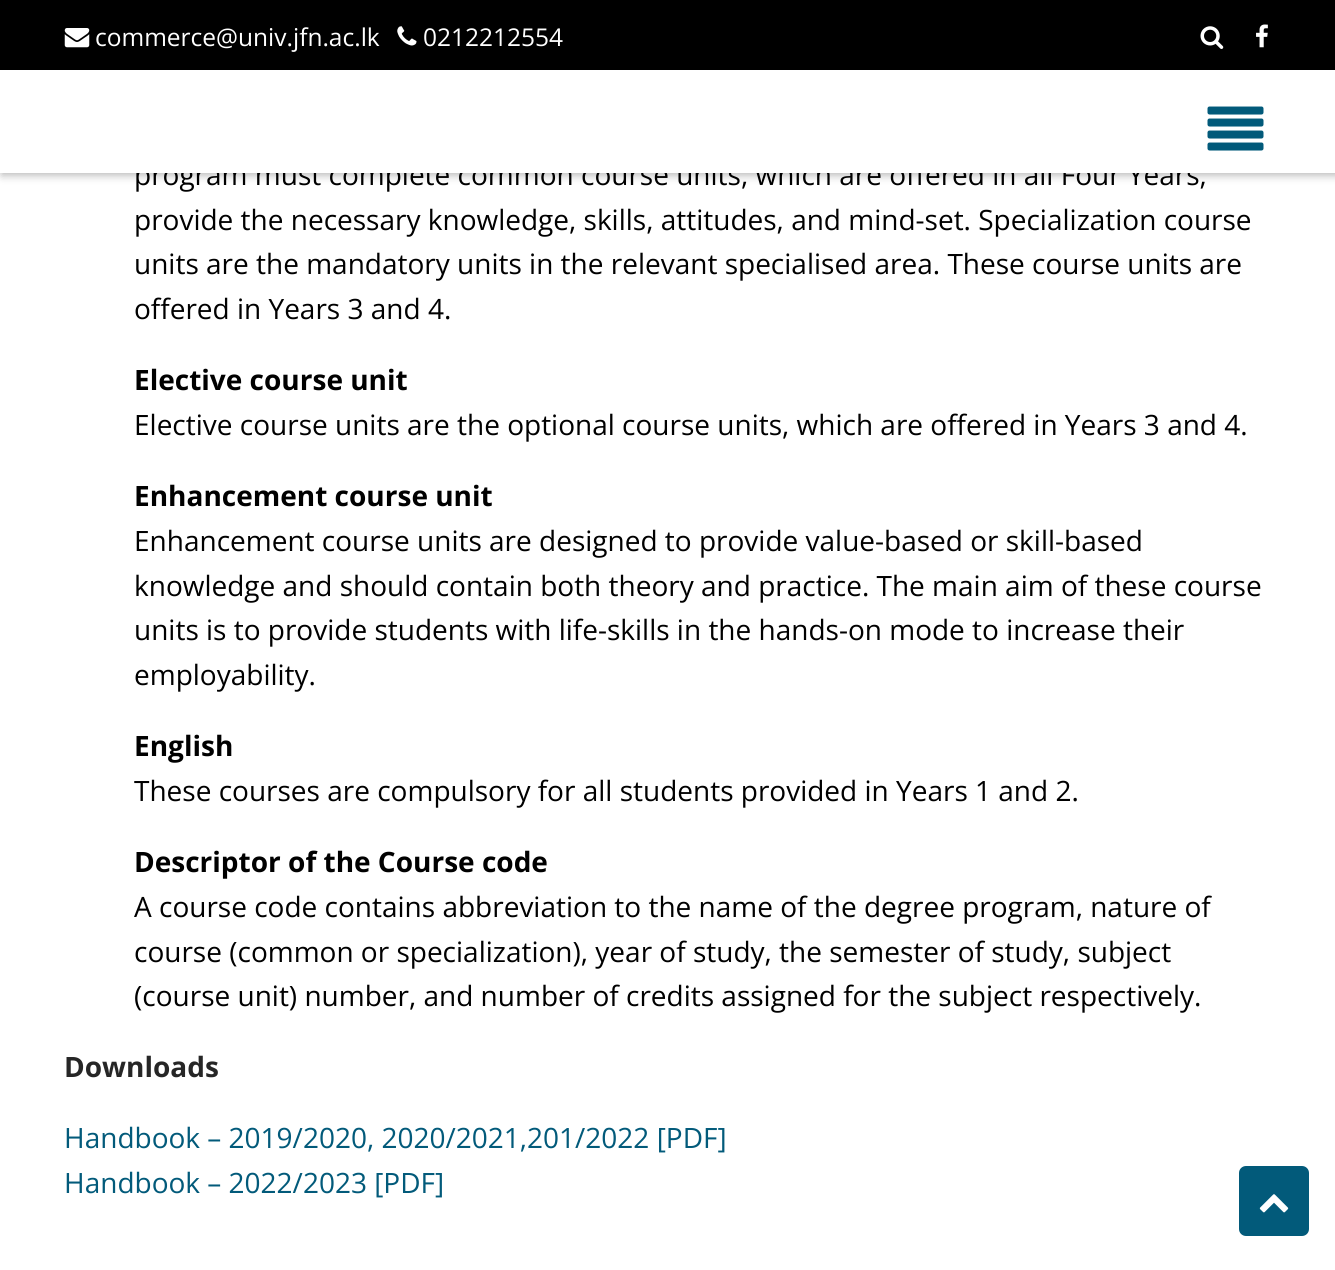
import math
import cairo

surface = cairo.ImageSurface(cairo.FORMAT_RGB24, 1335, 1270)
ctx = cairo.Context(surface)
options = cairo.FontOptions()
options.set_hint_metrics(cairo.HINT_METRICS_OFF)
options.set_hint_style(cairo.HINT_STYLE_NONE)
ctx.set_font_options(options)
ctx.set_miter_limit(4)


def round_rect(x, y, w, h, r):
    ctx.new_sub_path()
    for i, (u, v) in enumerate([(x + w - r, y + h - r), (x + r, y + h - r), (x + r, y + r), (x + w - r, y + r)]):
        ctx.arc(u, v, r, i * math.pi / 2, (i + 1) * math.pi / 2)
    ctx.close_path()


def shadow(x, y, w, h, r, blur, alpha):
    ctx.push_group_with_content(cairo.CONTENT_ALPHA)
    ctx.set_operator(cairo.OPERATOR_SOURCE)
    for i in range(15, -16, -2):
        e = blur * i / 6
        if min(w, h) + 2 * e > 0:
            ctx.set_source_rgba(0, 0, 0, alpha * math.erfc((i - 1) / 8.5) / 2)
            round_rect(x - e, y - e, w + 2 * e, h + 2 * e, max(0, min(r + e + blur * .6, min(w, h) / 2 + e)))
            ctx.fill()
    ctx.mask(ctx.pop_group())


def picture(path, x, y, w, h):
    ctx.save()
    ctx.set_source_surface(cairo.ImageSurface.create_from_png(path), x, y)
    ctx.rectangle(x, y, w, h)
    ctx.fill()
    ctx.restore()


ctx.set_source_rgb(1, 1, 1)
ctx.paint()
ctx.set_source_rgb(0, 0, 0)
ctx.rectangle(0, 0, 1335, 70)
ctx.fill()
picture("img1.png", 64, 28, 26, 20)
ctx.select_font_face("Open Sans")
ctx.set_font_size(24.5)
ctx.set_source_rgb(1, 1, 1)
ctx.move_to(95, 46)
ctx.show_text("commerce@univ.jfn.ac.lk")
picture("img2.png", 397, 26, 20, 20)
ctx.move_to(423, 46)
ctx.show_text("0212212554")
picture("img3.png", 1200, 26, 24, 23)
picture("img4.png", 1256, 24, 12, 24)
ctx.set_source_rgb(0, 0, 0)
shadow(2, 72, 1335, 103, 0, 4.5, 0.3)
ctx.set_font_size(28)
ctx.set_source_rgb(0, 0, 0)
ctx.move_to(134, 185)
ctx.show_text("program must complete common course units, which are offered in all Four Years,")
ctx.set_source_rgb(1, 1, 1)
ctx.rectangle(0, 70, 1335, 103)
ctx.fill()
picture("img5.png", 1207, 106, 57, 45)
ctx.set_source_rgb(0, 0, 0)
ctx.move_to(134, 230)
ctx.show_text("provide the necessary knowledge, skills, attitudes, and mind-set. Specialization course")
ctx.move_to(134, 274)
ctx.show_text("units are the mandatory units in the relevant specialised area. These course units are")
ctx.move_to(134, 319)
ctx.show_text("offered in Years 3 and 4.")
ctx.select_font_face("Open Sans", cairo.FONT_SLANT_NORMAL, cairo.FONT_WEIGHT_BOLD)
ctx.move_to(134, 390)
ctx.show_text("Elective course unit")
ctx.select_font_face("Open Sans")
ctx.move_to(134, 435)
ctx.show_text("Elective course units are the optional course units, which are offered in Years 3 and 4.")
ctx.select_font_face("Open Sans", cairo.FONT_SLANT_NORMAL, cairo.FONT_WEIGHT_BOLD)
ctx.move_to(134, 506)
ctx.show_text("Enhancement course unit")
ctx.select_font_face("Open Sans")
ctx.move_to(134, 551)
ctx.show_text("Enhancement course units are designed to provide value-based or skill-based")
ctx.move_to(134, 596)
ctx.show_text("knowledge and should contain both theory and practice. The main aim of these course")
ctx.move_to(134, 640)
ctx.show_text("units is to provide students with life-skills in the hands-on mode to increase their")
ctx.move_to(134, 685)
ctx.show_text("employability.")
ctx.select_font_face("Open Sans", cairo.FONT_SLANT_NORMAL, cairo.FONT_WEIGHT_BOLD)
ctx.move_to(134, 756)
ctx.show_text("English")
ctx.select_font_face("Open Sans")
ctx.move_to(134, 801)
ctx.show_text("These courses are compulsory for all students provided in Years 1 and 2.")
ctx.select_font_face("Open Sans", cairo.FONT_SLANT_NORMAL, cairo.FONT_WEIGHT_BOLD)
ctx.move_to(134, 872)
ctx.show_text("Descriptor of the Course code")
ctx.select_font_face("Open Sans")
ctx.move_to(134, 917)
ctx.show_text("A course code contains abbreviation to the name of the degree program, nature of")
ctx.move_to(134, 962)
ctx.show_text("course (common or specialization), year of study, the semester of study, subject")
ctx.move_to(134, 1006)
ctx.show_text("(course unit) number, and number of credits assigned for the subject respectively.")
ctx.select_font_face("Open Sans", cairo.FONT_SLANT_NORMAL, cairo.FONT_WEIGHT_BOLD)
ctx.set_source_rgb(0.149, 0.149, 0.149)
ctx.move_to(64, 1077)
ctx.show_text("Downloads")
ctx.select_font_face("Open Sans")
ctx.set_source_rgb(0.008, 0.353, 0.478)
ctx.move_to(64, 1148)
ctx.show_text("Handbook – 2019/2020, 2020/2021,201/2022 [PDF]")
ctx.move_to(64, 1193)
ctx.show_text("Handbook – 2022/2023 [PDF]")
round_rect(1239, 1166, 70, 70, 7)
ctx.fill()
picture("img6.png", 1259, 1194, 30, 19)
surface.write_to_png("page.png")
